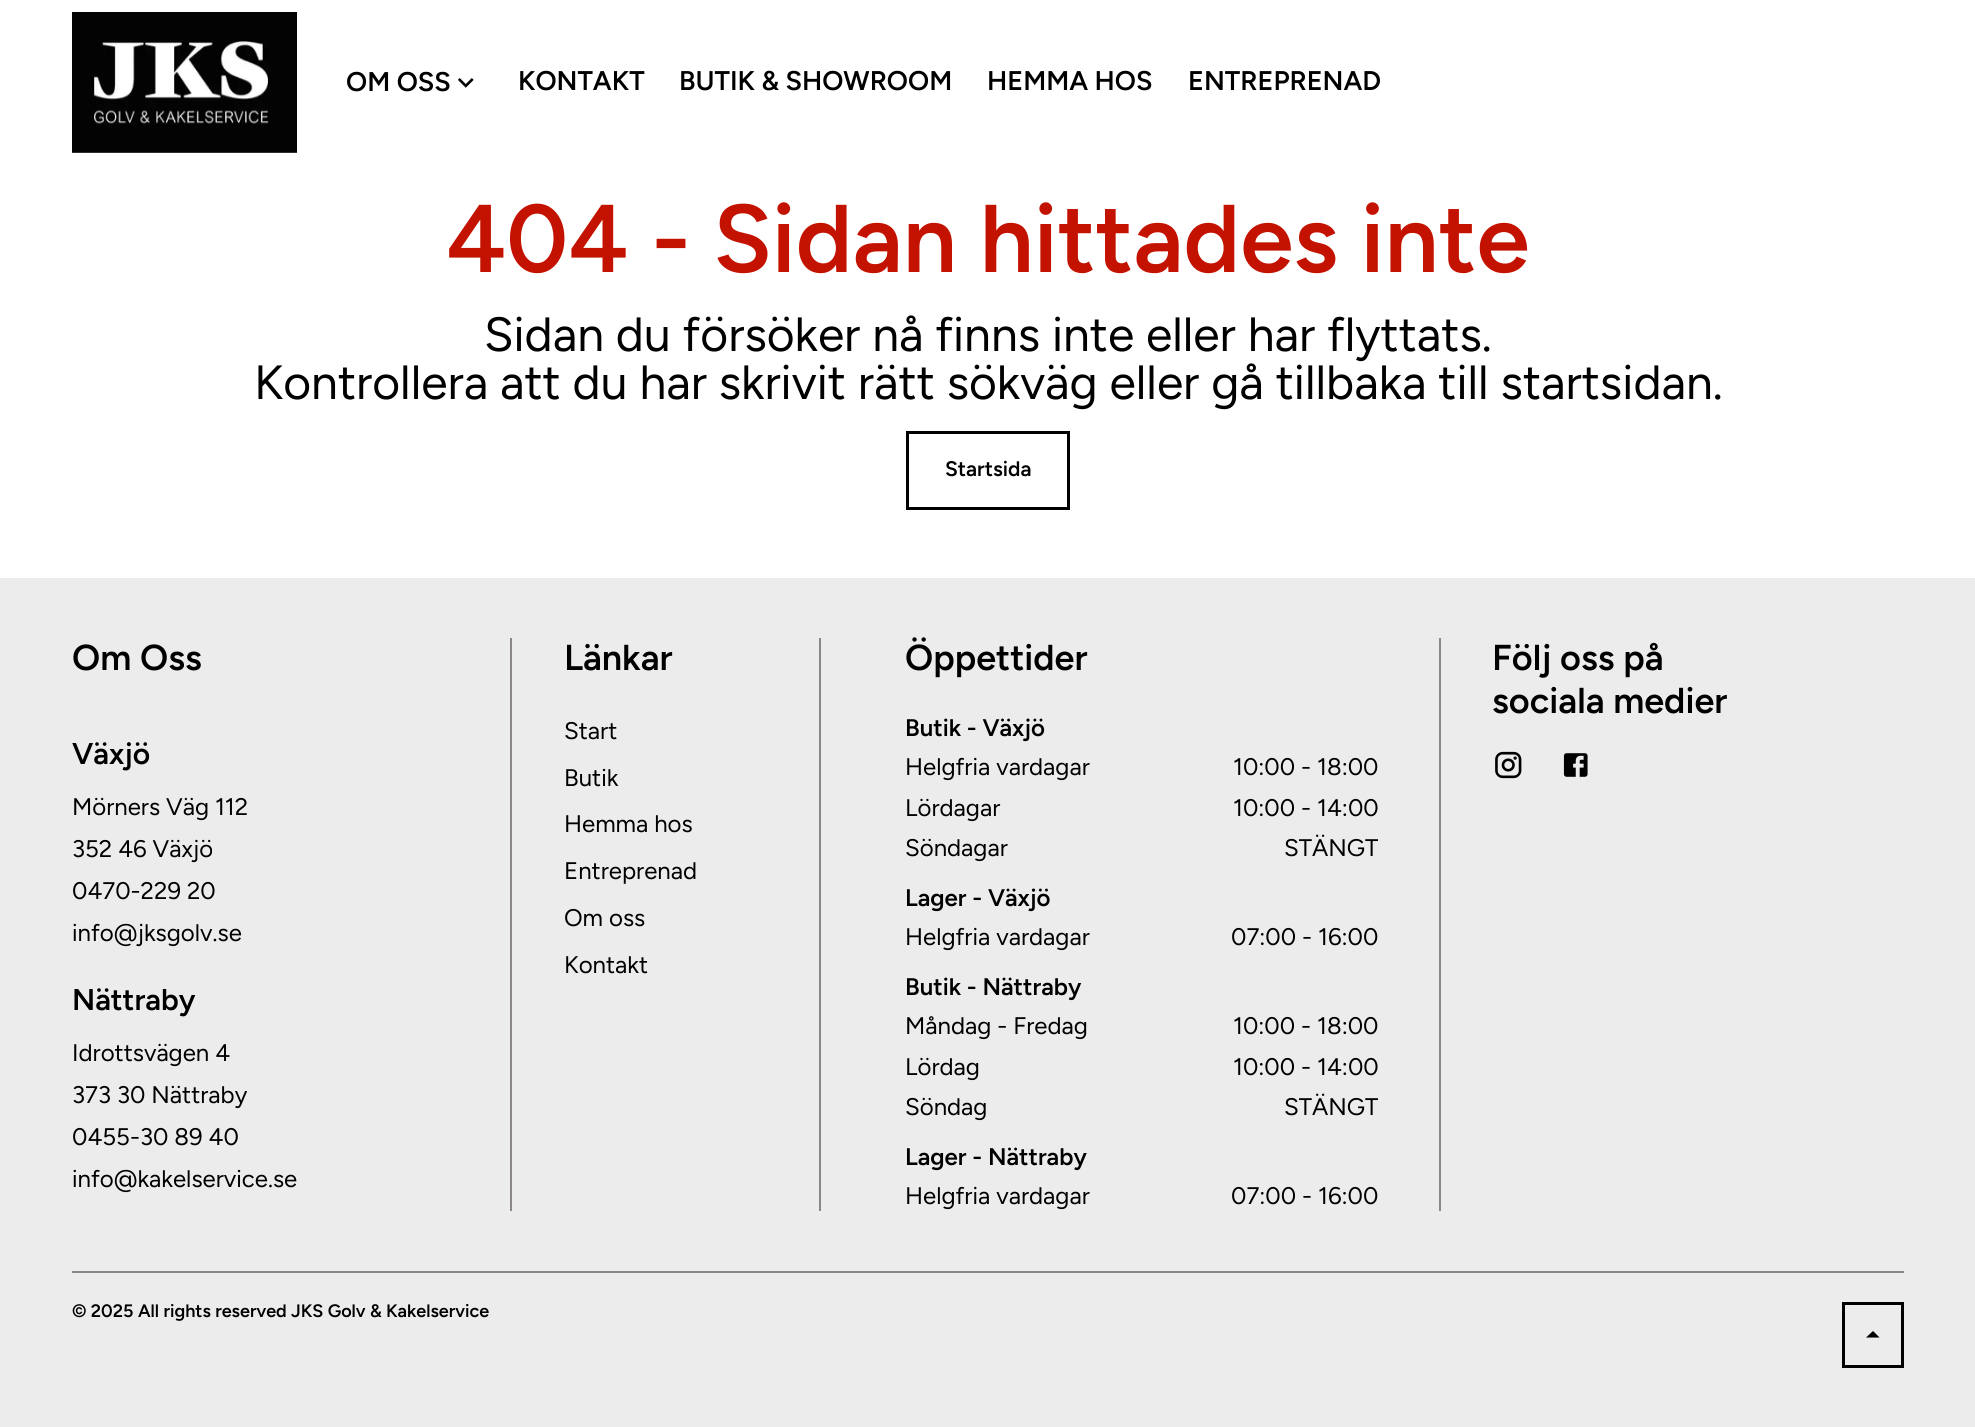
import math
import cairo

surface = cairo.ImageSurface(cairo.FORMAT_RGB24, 1975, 1427)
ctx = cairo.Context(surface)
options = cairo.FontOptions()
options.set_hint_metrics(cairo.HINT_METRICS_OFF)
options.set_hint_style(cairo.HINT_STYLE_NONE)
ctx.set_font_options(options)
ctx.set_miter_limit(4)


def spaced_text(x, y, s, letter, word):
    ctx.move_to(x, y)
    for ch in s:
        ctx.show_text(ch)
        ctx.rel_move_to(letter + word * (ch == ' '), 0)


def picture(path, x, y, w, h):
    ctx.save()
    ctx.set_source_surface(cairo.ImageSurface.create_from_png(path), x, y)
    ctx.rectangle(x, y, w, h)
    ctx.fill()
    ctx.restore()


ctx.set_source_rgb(1, 1, 1)
ctx.paint()
picture("img1.png", 72, 12, 225, 141)
ctx.select_font_face("Figtree SemiBold")
ctx.set_font_size(27)
ctx.set_source_rgb(0, 0, 0)
ctx.move_to(346, 91)
ctx.show_text("OM OSS")
picture("img2.png", 458, 78, 16, 10)
ctx.move_to(518, 90)
ctx.show_text("KONTAKT")
ctx.move_to(679, 90)
ctx.show_text("BUTIK & SHOWROOM")
ctx.move_to(987, 90)
ctx.show_text("HEMMA HOS")
ctx.move_to(1188, 90)
ctx.show_text("ENTREPRENAD")
ctx.set_font_size(96)
ctx.set_source_rgb(0.769, 0.071, 0)
spaced_text(446, 272, "404 - Sidan hittades inte", 0, -0.5)
ctx.select_font_face("Figtree")
ctx.set_font_size(48)
ctx.set_source_rgb(0, 0, 0)
ctx.move_to(484, 351)
ctx.show_text("Sidan du försöker nå finns inte eller har flyttats.")
ctx.move_to(254, 399)
ctx.show_text("Kontrollera att du har skrivit rätt sökväg eller gå tillbaka till startsidan.")
ctx.rectangle(907.5, 432.5, 161, 76)
ctx.set_line_width(3)
ctx.stroke()
ctx.select_font_face("Figtree SemiBold")
ctx.set_font_size(21)
ctx.move_to(945, 476)
ctx.show_text("Startsida")
ctx.set_source_rgb(0.925, 0.925, 0.925)
ctx.rectangle(0, 578, 1975, 849)
ctx.fill()
ctx.set_source_rgb(0.541, 0.525, 0.537)
ctx.rectangle(510, 638, 2, 573)
ctx.fill()
ctx.set_font_size(36)
ctx.set_source_rgb(0, 0, 0)
ctx.move_to(72, 670)
ctx.show_text("Om Oss")
ctx.set_font_size(30)
ctx.move_to(72, 764)
ctx.show_text("Växjö")
ctx.select_font_face("Figtree")
ctx.set_font_size(24)
ctx.move_to(72, 815)
ctx.show_text("Mörners Väg 112")
ctx.move_to(72, 857)
ctx.show_text("352 46 Växjö")
ctx.move_to(72, 899)
ctx.show_text("0470-229 20")
ctx.move_to(72, 941)
ctx.show_text("info@jksgolv.se")
ctx.select_font_face("Figtree SemiBold")
ctx.set_font_size(30)
ctx.move_to(72, 1010)
ctx.show_text("Nättraby")
ctx.select_font_face("Figtree")
ctx.set_font_size(24)
ctx.move_to(72, 1061)
ctx.show_text("Idrottsvägen 4")
ctx.move_to(72, 1103)
ctx.show_text("373 30 Nättraby")
ctx.move_to(72, 1145)
ctx.show_text("0455-30 89 40")
ctx.move_to(72, 1187)
ctx.show_text("info@kakelservice.se")
ctx.set_source_rgb(0.541, 0.525, 0.537)
ctx.rectangle(819, 638, 2, 573)
ctx.fill()
ctx.select_font_face("Figtree SemiBold")
ctx.set_font_size(36)
ctx.set_source_rgb(0, 0, 0)
ctx.move_to(564, 670)
ctx.show_text("Länkar")
ctx.select_font_face("Figtree")
ctx.set_font_size(24)
ctx.move_to(564, 739)
ctx.show_text("Start")
ctx.move_to(564, 786)
ctx.show_text("Butik")
ctx.move_to(564, 832)
ctx.show_text("Hemma hos")
ctx.move_to(564, 879)
ctx.show_text("Entreprenad")
ctx.move_to(564, 926)
ctx.show_text("Om oss")
ctx.move_to(564, 973)
ctx.show_text("Kontakt")
ctx.set_source_rgb(0.541, 0.525, 0.537)
ctx.rectangle(1439, 638, 2, 573)
ctx.fill()
ctx.select_font_face("Figtree SemiBold")
ctx.set_font_size(36)
ctx.set_source_rgb(0, 0, 0)
ctx.move_to(905, 670)
ctx.show_text("Öppettider")
ctx.set_font_size(24)
ctx.move_to(905, 736)
ctx.show_text("Butik - Växjö")
ctx.select_font_face("Figtree")
ctx.move_to(905, 775)
ctx.show_text("Helgfria vardagar")
ctx.move_to(1233, 775)
ctx.show_text("10:00 - 18:00")
ctx.move_to(905, 816)
ctx.show_text("Lördagar")
ctx.move_to(1233, 816)
ctx.show_text("10:00 - 14:00")
ctx.move_to(905, 856)
ctx.show_text("Söndagar")
ctx.move_to(1284, 856)
ctx.show_text("STÄNGT")
ctx.select_font_face("Figtree SemiBold")
ctx.move_to(905, 906)
ctx.show_text("Lager - Växjö")
ctx.select_font_face("Figtree")
ctx.move_to(905, 945)
ctx.show_text("Helgfria vardagar")
ctx.move_to(1231, 945)
ctx.show_text("07:00 - 16:00")
ctx.select_font_face("Figtree SemiBold")
ctx.move_to(905, 995)
ctx.show_text("Butik - Nättraby")
ctx.select_font_face("Figtree")
ctx.move_to(905, 1034)
ctx.show_text("Måndag - Fredag")
ctx.move_to(1233, 1034)
ctx.show_text("10:00 - 18:00")
ctx.move_to(905, 1075)
ctx.show_text("Lördag")
ctx.move_to(1233, 1075)
ctx.show_text("10:00 - 14:00")
ctx.move_to(905, 1115)
ctx.show_text("Söndag")
ctx.move_to(1284, 1115)
ctx.show_text("STÄNGT")
ctx.select_font_face("Figtree SemiBold")
ctx.move_to(905, 1165)
ctx.show_text("Lager - Nättraby")
ctx.select_font_face("Figtree")
ctx.move_to(905, 1204)
ctx.show_text("Helgfria vardagar")
ctx.move_to(1231, 1204)
ctx.show_text("07:00 - 16:00")
ctx.select_font_face("Figtree SemiBold")
ctx.set_font_size(36)
ctx.move_to(1492, 670)
ctx.show_text("Följ oss på")
ctx.move_to(1492, 713)
ctx.show_text("sociala medier")
picture("img3.png", 1495, 751, 27, 28)
picture("img4.png", 1563, 753, 25, 24)
ctx.set_source_rgb(0.541, 0.525, 0.537)
ctx.rectangle(72, 1271, 1832, 2)
ctx.fill()
ctx.set_font_size(18)
ctx.set_source_rgb(0, 0, 0)
ctx.move_to(72, 1317)
ctx.show_text("© 2025")
ctx.move_to(138, 1317)
ctx.show_text("All rights reserved JKS Golv & Kakelservice")
ctx.rectangle(1843.5, 1303.5, 59, 63)
ctx.stroke()
ctx.new_path()
ctx.move_to(1866, 1337.5)
ctx.line_to(1873, 1331)
ctx.line_to(1879.5, 1337.5)
ctx.close_path()
ctx.fill()
surface.write_to_png("page.png")
